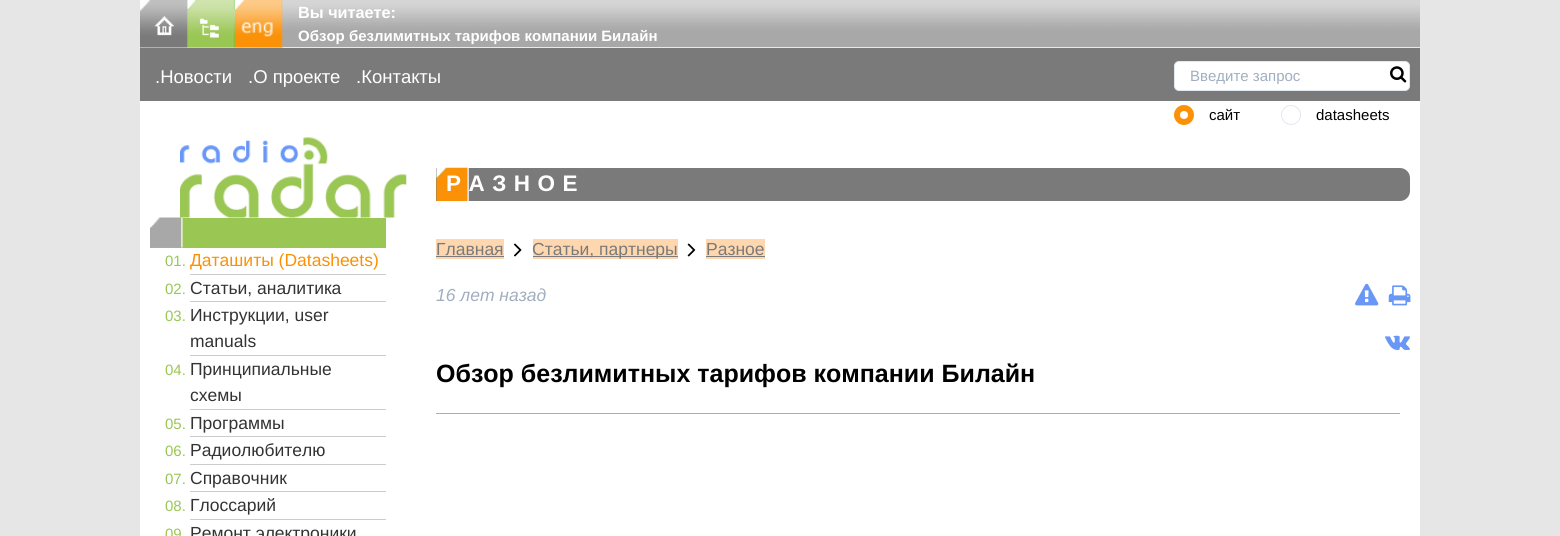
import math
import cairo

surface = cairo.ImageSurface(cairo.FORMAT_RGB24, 1560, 536)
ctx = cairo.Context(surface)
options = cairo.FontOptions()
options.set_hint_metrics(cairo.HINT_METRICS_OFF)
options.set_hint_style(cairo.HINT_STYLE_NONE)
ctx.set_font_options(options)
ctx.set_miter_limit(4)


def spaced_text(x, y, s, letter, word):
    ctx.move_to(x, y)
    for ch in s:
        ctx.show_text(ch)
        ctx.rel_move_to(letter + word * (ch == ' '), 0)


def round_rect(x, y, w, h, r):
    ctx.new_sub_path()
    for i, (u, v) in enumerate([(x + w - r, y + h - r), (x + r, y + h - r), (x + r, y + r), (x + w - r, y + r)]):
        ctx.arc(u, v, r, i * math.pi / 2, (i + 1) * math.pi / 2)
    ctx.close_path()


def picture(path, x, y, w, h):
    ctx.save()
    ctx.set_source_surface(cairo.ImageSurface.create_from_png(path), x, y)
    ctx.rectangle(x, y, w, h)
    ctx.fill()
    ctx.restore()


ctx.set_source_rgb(0.902, 0.902, 0.902)
ctx.paint()
ctx.set_source_rgb(1, 1, 1)
ctx.rectangle(140, 47, 1280, 489)
ctx.fill()
picture("img1.png", 140, 0, 1280, 48)
picture("img2.png", 140, 0, 48, 48)
picture("img3.png", 187, 0, 48, 48)
picture("img4.png", 235, 0, 48, 48)
ctx.select_font_face("Liberation Sans", cairo.FONT_SLANT_NORMAL, cairo.FONT_WEIGHT_BOLD)
ctx.set_font_size(16.25)
ctx.move_to(298, 18)
ctx.show_text("Вы читаете:")
ctx.set_font_size(15)
ctx.move_to(298, 41)
ctx.show_text("Обзор безлимитных тарифов компании Билайн")
ctx.set_source_rgb(0.478, 0.478, 0.478)
ctx.rectangle(140, 48, 1280, 53)
ctx.fill()
ctx.select_font_face("Liberation Sans")
ctx.set_font_size(18.5)
ctx.set_source_rgb(1, 1, 1)
ctx.move_to(155, 83)
ctx.show_text(".Новости")
ctx.move_to(248, 83)
ctx.show_text(".О проекте")
ctx.move_to(356, 83)
ctx.show_text(".Контакты")
round_rect(1174.5, 61.5, 235, 29, 4.5)
ctx.fill_preserve()
ctx.set_source_rgb(0.886, 0.91, 0.941)
ctx.set_line_width(1)
ctx.stroke()
ctx.set_font_size(15)
ctx.set_source_rgb(0.627, 0.682, 0.753)
ctx.move_to(1190, 81)
ctx.show_text("Введите запрос")
picture("img5.png", 1390, 66, 17, 17)
ctx.set_source_rgb(0.98, 0.569, 0.027)
ctx.arc(1184, 115, 10, 0, 2 * math.pi)
ctx.fill()
ctx.set_source_rgb(1, 1, 1)
ctx.arc(1184, 115, 4, 0, 2 * math.pi)
ctx.fill()
ctx.set_source_rgb(0, 0, 0)
ctx.move_to(1209, 120)
ctx.show_text("сайт")
ctx.new_path()
ctx.arc(1291, 115, 9.5, 0, 2 * math.pi)
ctx.set_source_rgb(0.886, 0.91, 0.941)
ctx.stroke()
ctx.set_source_rgb(0, 0, 0)
ctx.move_to(1316, 120)
ctx.show_text("datasheets")
ctx.set_source_rgb(0.604, 0.776, 0.329)
ctx.rectangle(150, 218, 236, 30)
ctx.fill()
picture("img7.png", 150, 217, 33, 31)
picture("img6.png", 180, 137, 227, 81)
ctx.set_source_rgb(0.8, 0.8, 0.8)
ctx.rectangle(190, 274, 196, 1)
ctx.fill()
ctx.set_source_rgb(0.604, 0.776, 0.329)
ctx.move_to(165, 266)
ctx.show_text("01.")
ctx.set_font_size(17.5)
ctx.set_source_rgb(0.98, 0.569, 0.027)
ctx.move_to(190, 266)
ctx.show_text("Даташиты (Datasheets)")
ctx.set_source_rgb(0.8, 0.8, 0.8)
ctx.rectangle(190, 301, 196, 1)
ctx.fill()
ctx.set_font_size(15)
ctx.set_source_rgb(0.604, 0.776, 0.329)
ctx.move_to(165, 294)
ctx.show_text("02.")
ctx.set_font_size(17.5)
ctx.set_source_rgb(0.2, 0.2, 0.2)
ctx.move_to(190, 294)
ctx.show_text("Статьи, аналитика")
ctx.set_source_rgb(0.8, 0.8, 0.8)
ctx.rectangle(190, 355, 196, 1)
ctx.fill()
ctx.set_font_size(15)
ctx.set_source_rgb(0.604, 0.776, 0.329)
ctx.move_to(165, 321)
ctx.show_text("03.")
ctx.set_font_size(17.5)
ctx.set_source_rgb(0.2, 0.2, 0.2)
ctx.move_to(190, 321)
ctx.show_text("Инструкции, user")
ctx.move_to(190, 347)
ctx.show_text("manuals")
ctx.set_source_rgb(0.8, 0.8, 0.8)
ctx.rectangle(190, 409, 196, 1)
ctx.fill()
ctx.set_font_size(15)
ctx.set_source_rgb(0.604, 0.776, 0.329)
ctx.move_to(165, 375)
ctx.show_text("04.")
ctx.set_font_size(17.5)
ctx.set_source_rgb(0.2, 0.2, 0.2)
ctx.move_to(190, 375)
ctx.show_text("Принципиальные")
ctx.move_to(190, 401)
ctx.show_text("схемы")
ctx.set_source_rgb(0.8, 0.8, 0.8)
ctx.rectangle(190, 436, 196, 1)
ctx.fill()
ctx.set_font_size(15)
ctx.set_source_rgb(0.604, 0.776, 0.329)
ctx.move_to(165, 429)
ctx.show_text("05.")
ctx.set_font_size(17.5)
ctx.set_source_rgb(0.2, 0.2, 0.2)
ctx.move_to(190, 429)
ctx.show_text("Программы")
ctx.set_source_rgb(0.8, 0.8, 0.8)
ctx.rectangle(190, 464, 196, 1)
ctx.fill()
ctx.set_font_size(15)
ctx.set_source_rgb(0.604, 0.776, 0.329)
ctx.move_to(165, 456)
ctx.show_text("06.")
ctx.set_font_size(17.5)
ctx.set_source_rgb(0.2, 0.2, 0.2)
ctx.move_to(190, 456)
ctx.show_text("Радиолюбителю")
ctx.set_source_rgb(0.8, 0.8, 0.8)
ctx.rectangle(190, 491, 196, 1)
ctx.fill()
ctx.set_font_size(15)
ctx.set_source_rgb(0.604, 0.776, 0.329)
ctx.move_to(165, 484)
ctx.show_text("07.")
ctx.set_font_size(17.5)
ctx.set_source_rgb(0.2, 0.2, 0.2)
ctx.move_to(190, 484)
ctx.show_text("Справочник")
ctx.set_source_rgb(0.8, 0.8, 0.8)
ctx.rectangle(190, 519, 196, 1)
ctx.fill()
ctx.set_font_size(15)
ctx.set_source_rgb(0.604, 0.776, 0.329)
ctx.move_to(165, 511)
ctx.show_text("08.")
ctx.set_font_size(17.5)
ctx.set_source_rgb(0.2, 0.2, 0.2)
ctx.move_to(190, 511)
ctx.show_text("Глоссарий")
ctx.set_font_size(15)
ctx.set_source_rgb(0.604, 0.776, 0.329)
ctx.move_to(165, 539)
ctx.show_text("09")
ctx.set_font_size(17.5)
ctx.set_source_rgb(0.2, 0.2, 0.2)
ctx.move_to(190, 539)
ctx.show_text("Ремонт электроники")
ctx.set_source_rgb(0.478, 0.478, 0.478)
ctx.new_path()
ctx.move_to(436, 168)
ctx.line_to(1400, 168)
ctx.curve_to(1405.5, 168, 1410, 172.5, 1410, 178)
ctx.line_to(1410, 191)
ctx.curve_to(1410, 196.5, 1405.5, 201, 1400, 201)
ctx.line_to(436, 201)
ctx.close_path()
ctx.fill()
picture("img8.png", 436, 167, 33, 35)
ctx.select_font_face("Liberation Sans", cairo.FONT_SLANT_NORMAL, cairo.FONT_WEIGHT_BOLD)
ctx.set_font_size(22.5)
ctx.set_source_rgb(1, 1, 1)
spaced_text(446, 191, "РАЗНОЕ", 7.5, 0)
ctx.set_source_rgb(0.996, 0.843, 0.686)
ctx.rectangle(436, 239, 68, 20)
ctx.fill()
ctx.select_font_face("Liberation Sans")
ctx.set_font_size(17.5)
ctx.set_source_rgb(0.478, 0.478, 0.478)
ctx.move_to(436, 255)
ctx.show_text("Главная")
ctx.rectangle(436, 256, 68, 1)
ctx.fill()
picture("img9.png", 514, 243, 8, 14)
ctx.set_source_rgb(0.996, 0.843, 0.686)
ctx.rectangle(533, 239, 145, 20)
ctx.fill()
ctx.set_source_rgb(0.478, 0.478, 0.478)
ctx.rectangle(533, 256, 145, 1)
ctx.fill()
ctx.move_to(532, 255)
ctx.show_text("Статьи, партнеры")
picture("img10.png", 687, 243, 9, 14)
ctx.set_source_rgb(0.996, 0.843, 0.686)
ctx.rectangle(706, 239, 59, 20)
ctx.fill()
ctx.set_source_rgb(0.478, 0.478, 0.478)
ctx.move_to(706, 255)
ctx.show_text("Разное")
ctx.rectangle(706, 256, 59, 1)
ctx.fill()
ctx.select_font_face("Liberation Sans", cairo.FONT_SLANT_ITALIC)
ctx.set_source_rgb(0.627, 0.682, 0.753)
ctx.move_to(436, 301)
ctx.show_text("16 лет назад")
picture("img11.png", 1355, 283, 24, 23)
picture("img12.png", 1388, 285, 23, 21)
picture("img13.png", 1385, 335, 25, 15)
ctx.select_font_face("Liberation Sans", cairo.FONT_SLANT_NORMAL, cairo.FONT_WEIGHT_BOLD)
ctx.set_font_size(25)
ctx.set_source_rgb(0, 0, 0)
ctx.move_to(436, 382)
ctx.show_text("Обзор безлимитных тарифов компании Билайн")
ctx.set_source_rgb(0.604, 0.776, 0.329)
ctx.rectangle(436, 413, 964, 1)
ctx.fill()
surface.write_to_png("page.png")
